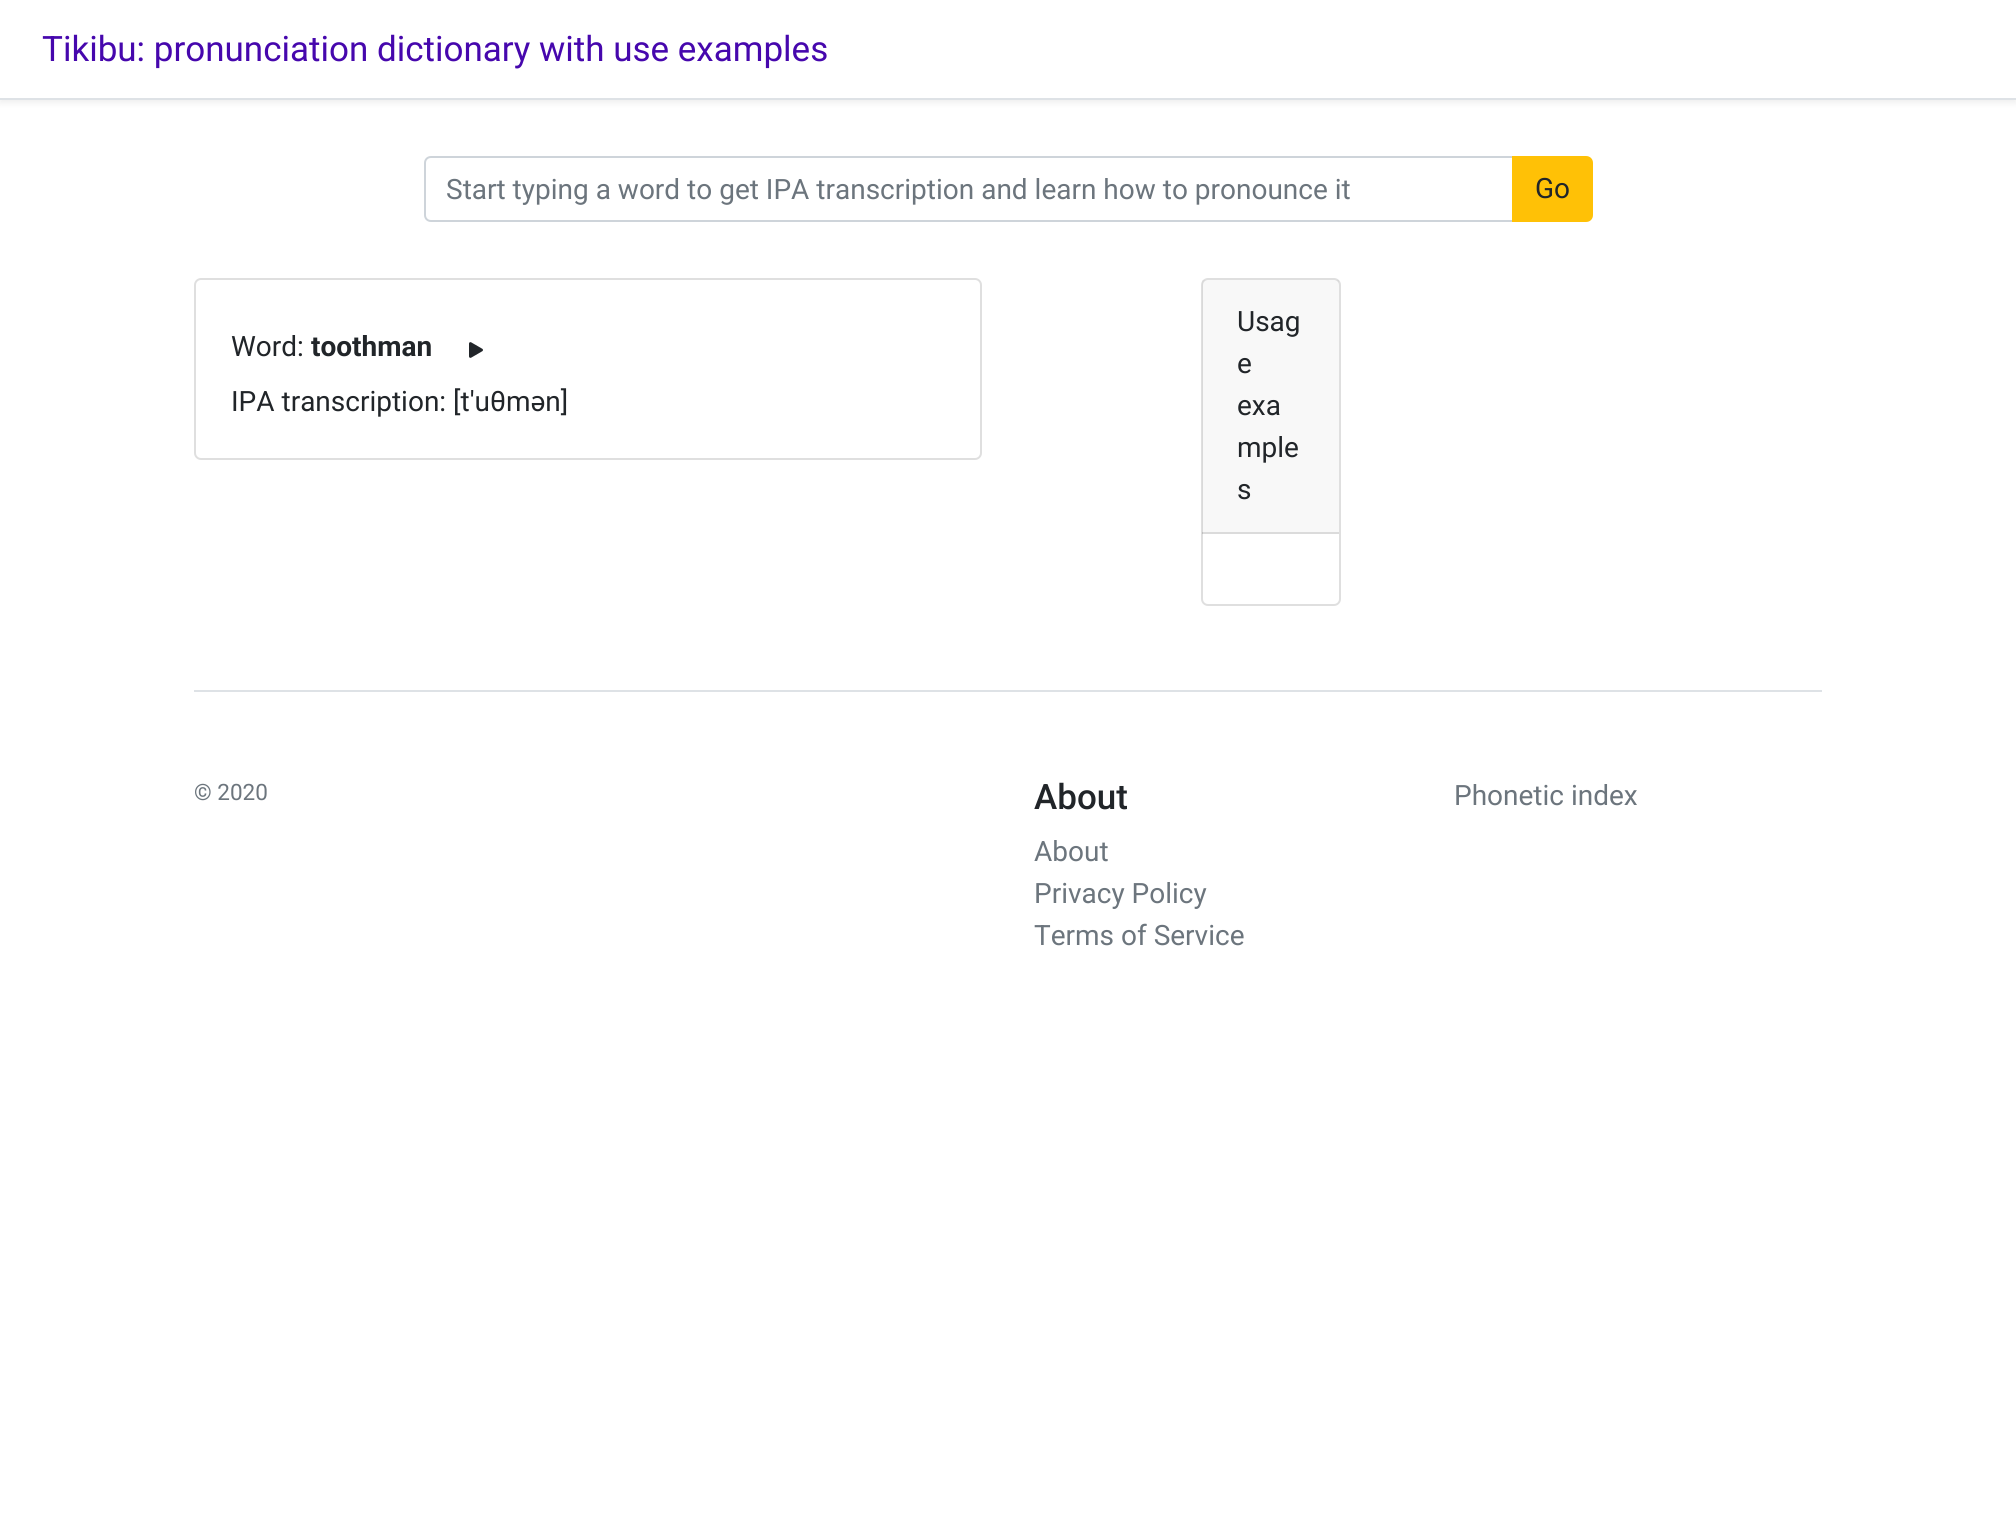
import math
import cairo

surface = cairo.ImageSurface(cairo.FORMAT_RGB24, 2016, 1528)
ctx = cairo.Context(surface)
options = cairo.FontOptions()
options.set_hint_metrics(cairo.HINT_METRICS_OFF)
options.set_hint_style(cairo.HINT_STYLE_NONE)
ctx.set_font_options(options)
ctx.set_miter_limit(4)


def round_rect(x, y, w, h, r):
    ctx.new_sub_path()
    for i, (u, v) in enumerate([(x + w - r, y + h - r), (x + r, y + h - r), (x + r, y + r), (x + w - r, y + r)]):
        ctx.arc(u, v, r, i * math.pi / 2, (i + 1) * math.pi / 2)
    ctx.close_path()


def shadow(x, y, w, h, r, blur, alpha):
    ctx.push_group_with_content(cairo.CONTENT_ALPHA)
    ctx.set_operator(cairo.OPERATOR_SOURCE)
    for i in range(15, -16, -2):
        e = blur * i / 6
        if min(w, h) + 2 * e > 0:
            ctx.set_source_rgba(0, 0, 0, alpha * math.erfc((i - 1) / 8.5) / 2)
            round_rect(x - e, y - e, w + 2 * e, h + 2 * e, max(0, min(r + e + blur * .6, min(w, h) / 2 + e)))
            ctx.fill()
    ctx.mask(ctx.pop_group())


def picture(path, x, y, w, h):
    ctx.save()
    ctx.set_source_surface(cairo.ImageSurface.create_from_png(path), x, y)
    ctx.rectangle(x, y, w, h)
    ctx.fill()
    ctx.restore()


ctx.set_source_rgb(1, 1, 1)
ctx.paint()
ctx.set_source_rgb(0, 0, 0)
shadow(0, 4, 2016, 99, 0, 3.5, 0.07)
ctx.set_source_rgb(1, 1, 1)
ctx.rectangle(0, 0, 2016, 98)
ctx.fill()
ctx.set_source_rgb(0.871, 0.886, 0.902)
ctx.rectangle(0, 98, 2016, 2)
ctx.fill()
ctx.select_font_face("Roboto")
ctx.set_font_size(35)
ctx.set_source_rgb(0.275, 0.031, 0.678)
ctx.move_to(42, 61)
ctx.show_text("Tikibu: pronunciation dictionary with use examples")
ctx.new_path()
ctx.move_to(431, 157)
ctx.line_to(1513, 157)
ctx.line_to(1513, 221)
ctx.line_to(431, 221)
ctx.curve_to(427.5, 221, 425, 218.5, 425, 215)
ctx.line_to(425, 163)
ctx.curve_to(425, 159.5, 427.5, 157, 431, 157)
ctx.close_path()
ctx.set_source_rgb(0.808, 0.831, 0.855)
ctx.stroke()
ctx.set_font_size(28)
ctx.set_source_rgb(0.424, 0.459, 0.49)
ctx.move_to(446, 199)
ctx.show_text("Start typing a word to get IPA transcription and learn how to pronounce it")
ctx.set_source_rgb(1, 0.757, 0.027)
ctx.new_path()
ctx.move_to(1513, 157)
ctx.line_to(1586, 157)
ctx.curve_to(1589.5, 157, 1592, 159.5, 1592, 163)
ctx.line_to(1592, 215)
ctx.curve_to(1592, 218.5, 1589.5, 221, 1586, 221)
ctx.line_to(1513, 221)
ctx.close_path()
ctx.fill_preserve()
ctx.stroke()
ctx.set_source_rgb(0.129, 0.145, 0.161)
ctx.move_to(1535, 198)
ctx.show_text("Go")
round_rect(195, 279, 786, 180, 6)
ctx.set_source_rgb(0.875, 0.875, 0.875)
ctx.stroke()
ctx.set_source_rgb(0.129, 0.145, 0.161)
ctx.move_to(231, 356)
ctx.show_text("Word:")
ctx.select_font_face("Roboto", cairo.FONT_SLANT_NORMAL, cairo.FONT_WEIGHT_BOLD)
ctx.move_to(311, 356)
ctx.show_text("toothman")
picture("img1.png", 469, 342, 14, 16)
ctx.select_font_face("Roboto")
ctx.move_to(231, 411)
ctx.show_text("IPA transcription: [t'uθmən]")
round_rect(1202, 279, 138, 326, 6)
ctx.set_source_rgb(0.875, 0.875, 0.875)
ctx.stroke()
ctx.set_source_rgba(0, 0, 0, 0.03)
ctx.rectangle(1202, 280, 137, 254)
ctx.fill()
ctx.set_source_rgba(0, 0, 0, 0.12)
ctx.rectangle(1202, 532, 137, 2)
ctx.fill()
ctx.set_source_rgb(0.129, 0.145, 0.161)
ctx.move_to(1237, 331)
ctx.show_text("Usag")
ctx.move_to(1237, 373)
ctx.show_text("e")
ctx.move_to(1237, 415)
ctx.show_text("exa")
ctx.move_to(1237, 457)
ctx.show_text("mple")
ctx.move_to(1237, 499)
ctx.show_text("s")
ctx.set_source_rgb(0.871, 0.886, 0.902)
ctx.rectangle(194, 690, 1628, 2)
ctx.fill()
ctx.set_font_size(22.5)
ctx.set_source_rgb(0.424, 0.459, 0.49)
ctx.move_to(194, 800)
ctx.show_text("© 2020")
ctx.select_font_face("Roboto Medium")
ctx.set_font_size(35)
ctx.set_source_rgb(0.129, 0.145, 0.161)
ctx.move_to(1034, 809)
ctx.show_text("About")
ctx.select_font_face("Roboto")
ctx.set_font_size(28)
ctx.set_source_rgb(0.424, 0.459, 0.49)
ctx.move_to(1034, 861)
ctx.show_text("About")
ctx.move_to(1034, 903)
ctx.show_text("Privacy Policy")
ctx.move_to(1034, 945)
ctx.show_text("Terms of Service")
ctx.move_to(1454, 805)
ctx.show_text("Phonetic index")
surface.write_to_png("page.png")
